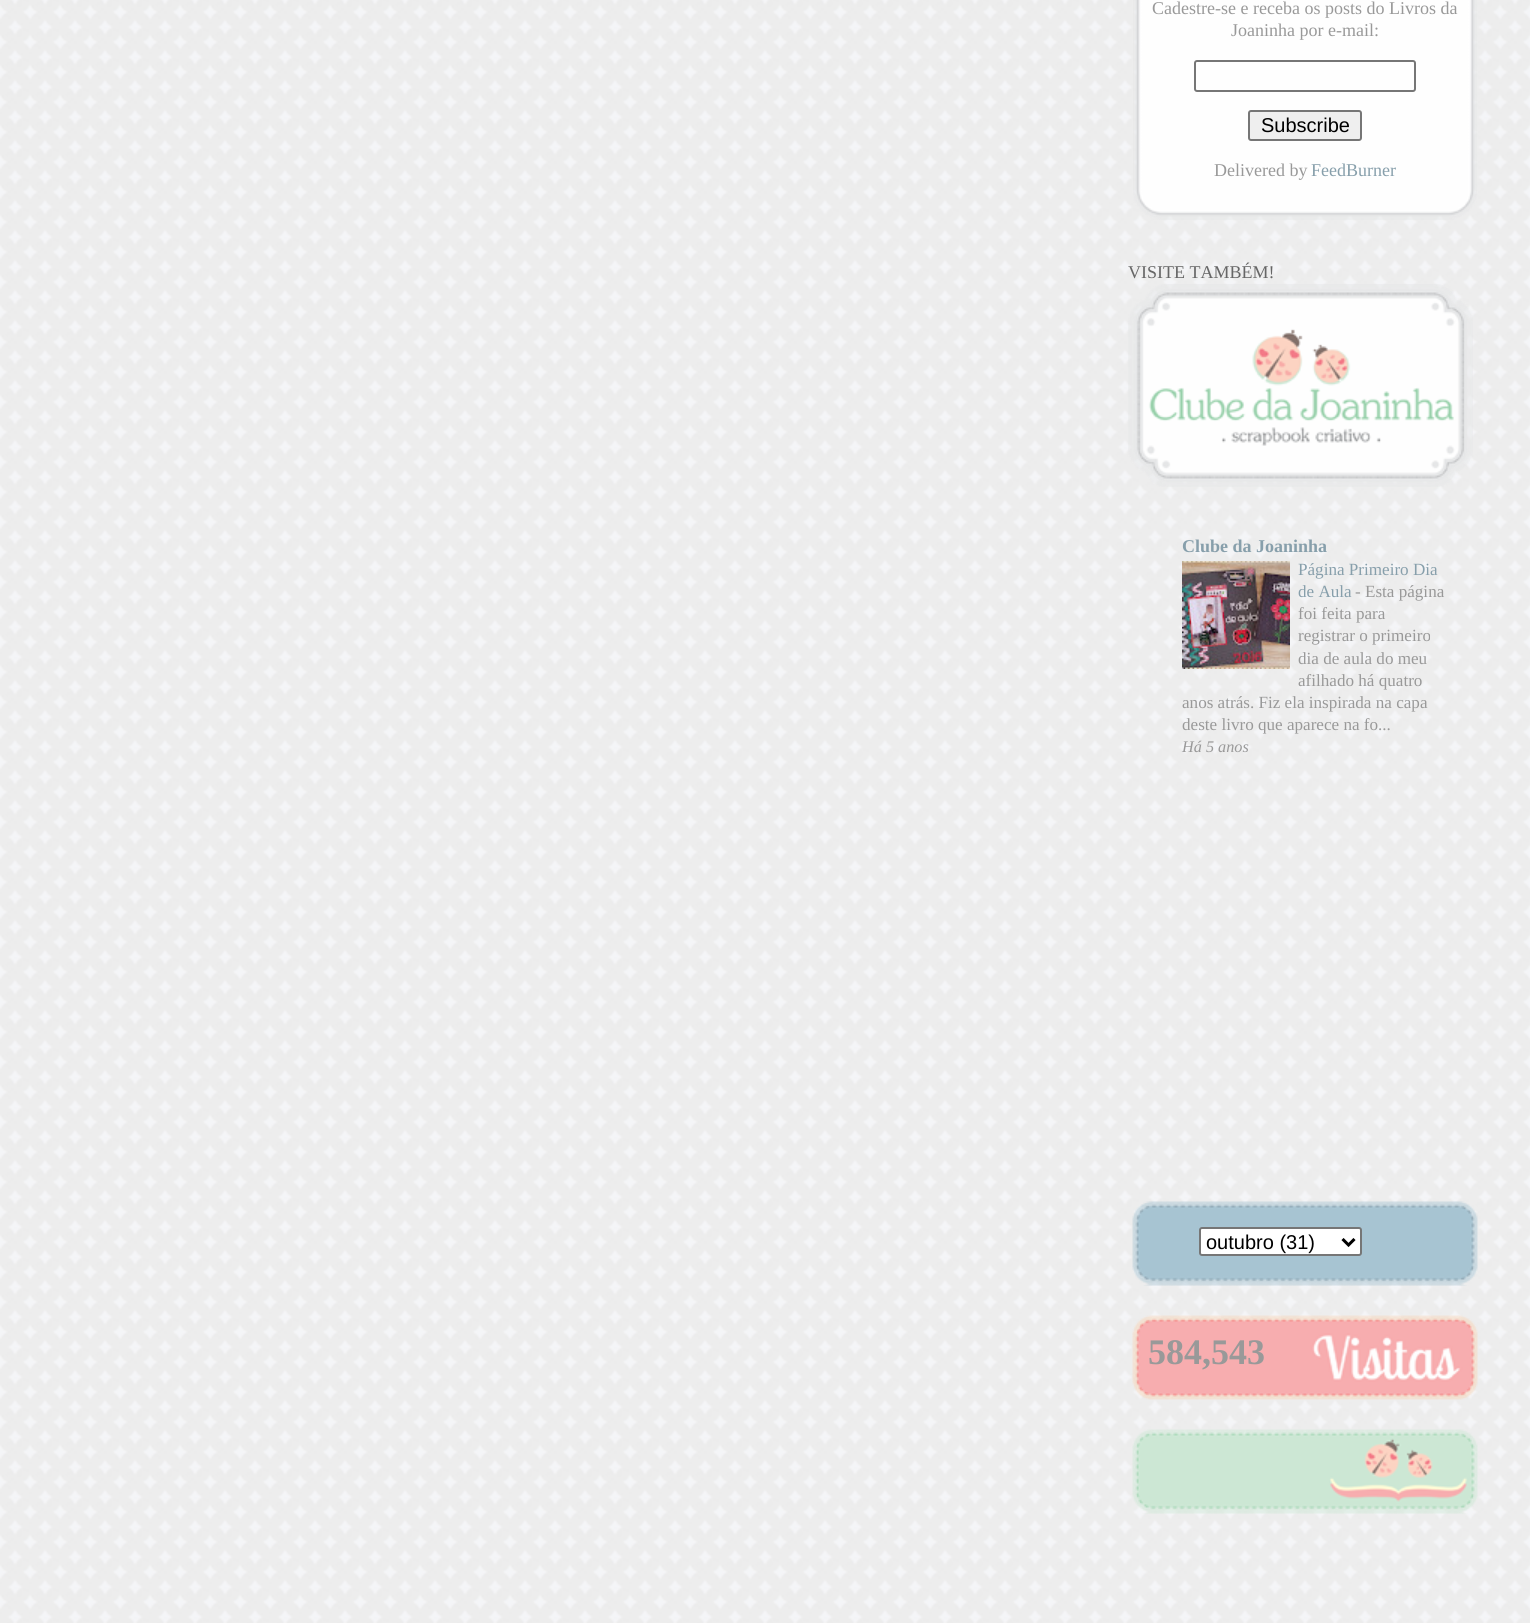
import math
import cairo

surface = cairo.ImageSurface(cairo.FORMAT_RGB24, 1530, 1623)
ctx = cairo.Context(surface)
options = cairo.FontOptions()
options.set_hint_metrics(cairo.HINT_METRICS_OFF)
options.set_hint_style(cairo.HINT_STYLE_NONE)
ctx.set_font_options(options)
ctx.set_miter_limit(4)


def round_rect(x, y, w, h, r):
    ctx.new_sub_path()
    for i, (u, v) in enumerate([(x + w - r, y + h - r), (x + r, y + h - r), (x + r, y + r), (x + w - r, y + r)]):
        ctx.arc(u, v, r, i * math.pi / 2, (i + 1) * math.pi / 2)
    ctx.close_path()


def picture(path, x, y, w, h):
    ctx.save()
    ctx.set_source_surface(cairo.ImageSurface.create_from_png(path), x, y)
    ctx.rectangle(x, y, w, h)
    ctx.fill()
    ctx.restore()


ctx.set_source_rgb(1, 1, 1)
ctx.paint()
picture("img1.png", 0, 0, 1530, 1623)
picture("img2.png", 1133, 0, 344, 220)
ctx.select_font_face("Liberation Serif")
ctx.set_font_size(18)
ctx.set_source_rgb(0.6, 0.6, 0.6)
ctx.move_to(1152, 14)
ctx.show_text("Cadestre-se e receba os posts do Livros da")
ctx.move_to(1231, 36)
ctx.show_text("Joaninha por e-mail:")
round_rect(1195, 61, 220, 30, 2)
ctx.set_source_rgb(0.463, 0.463, 0.463)
ctx.stroke()
ctx.set_source_rgb(0.937, 0.937, 0.937)
round_rect(1249, 111, 112, 29, 2)
ctx.fill_preserve()
ctx.set_source_rgb(0.463, 0.463, 0.463)
ctx.stroke()
ctx.select_font_face("Liberation Sans")
ctx.set_font_size(20)
ctx.set_source_rgb(0, 0, 0)
ctx.move_to(1261, 132)
ctx.show_text("Subscribe")
ctx.select_font_face("Liberation Serif")
ctx.set_font_size(18)
ctx.set_source_rgb(0.6, 0.6, 0.6)
ctx.move_to(1214, 176)
ctx.show_text("Delivered by")
ctx.set_source_rgb(0.529, 0.624, 0.671)
ctx.move_to(1311, 176)
ctx.show_text("FeedBurner")
ctx.set_source_rgb(0.4, 0.4, 0.4)
ctx.move_to(1128, 278)
ctx.show_text("VISITE TAMBÉM!")
picture("img3.png", 1128, 284, 345, 203)
ctx.select_font_face("Liberation Serif", cairo.FONT_SLANT_NORMAL, cairo.FONT_WEIGHT_BOLD)
ctx.set_source_rgb(0.529, 0.624, 0.671)
ctx.move_to(1182, 552)
ctx.show_text("Clube da Joaninha")
picture("img4.png", 1182, 561, 108, 108)
ctx.select_font_face("Liberation Serif")
ctx.set_font_size(17.1)
ctx.move_to(1298, 575)
ctx.show_text("Página Primeiro Dia")
ctx.move_to(1298, 597)
ctx.show_text("de Aula")
ctx.set_source_rgb(0.6, 0.6, 0.6)
ctx.move_to(1355, 597)
ctx.show_text("- Esta página")
ctx.move_to(1298, 619)
ctx.show_text("foi feita para")
ctx.move_to(1298, 641)
ctx.show_text("registrar o primeiro")
ctx.move_to(1298, 664)
ctx.show_text("dia de aula do meu")
ctx.move_to(1298, 686)
ctx.show_text("afilhado há quatro")
ctx.move_to(1182, 708)
ctx.show_text("anos atrás. Fiz ela inspirada na capa")
ctx.move_to(1182, 730)
ctx.show_text("deste livro que aparece na fo...")
ctx.select_font_face("Liberation Serif", cairo.FONT_SLANT_ITALIC)
ctx.set_font_size(16.25)
ctx.move_to(1182, 752)
ctx.show_text("Há 5 anos")
picture("img5.png", 1132, 1201, 346, 85)
ctx.set_source_rgb(1, 1, 1)
round_rect(1200, 1228, 161, 27, 2)
ctx.fill_preserve()
ctx.set_source_rgb(0.463, 0.463, 0.463)
ctx.stroke()
ctx.new_path()
ctx.move_to(1342.5, 1239)
ctx.line_to(1348.5, 1245)
ctx.line_to(1354.5, 1239)
ctx.set_source_rgb(0, 0, 0)
ctx.set_line_width(3)
ctx.stroke()
ctx.select_font_face("Liberation Sans")
ctx.set_font_size(20)
ctx.move_to(1206, 1249)
ctx.show_text("outubro (31)")
picture("img6.png", 1132, 1315, 346, 85)
ctx.select_font_face("Liberation Serif", cairo.FONT_SLANT_NORMAL, cairo.FONT_WEIGHT_BOLD)
ctx.set_font_size(36)
ctx.set_source_rgb(0.6, 0.6, 0.6)
ctx.move_to(1148, 1364)
ctx.show_text("584,543")
picture("img7.png", 1132, 1429, 346, 85)
surface.write_to_png("page.png")
